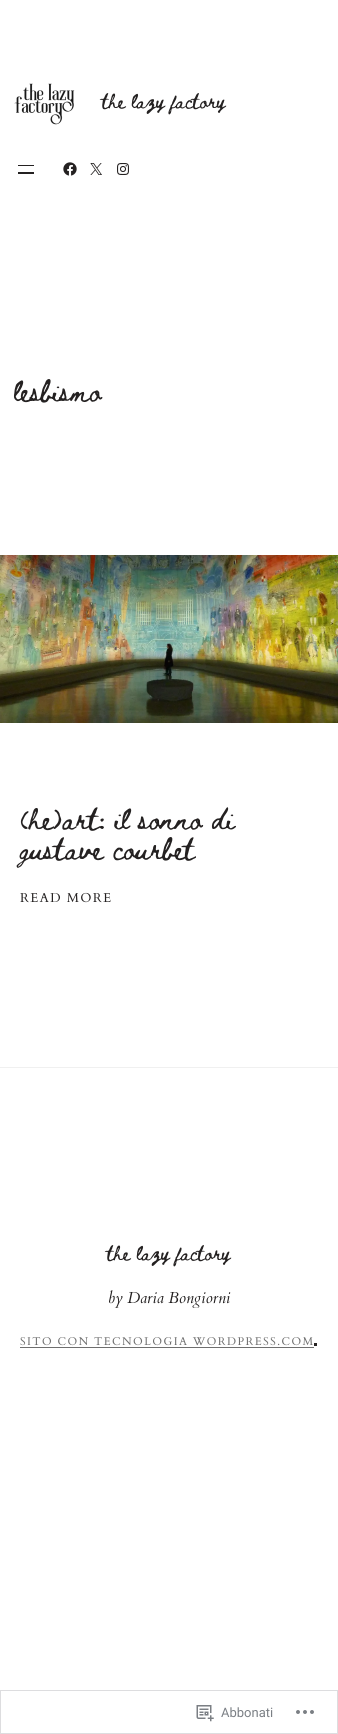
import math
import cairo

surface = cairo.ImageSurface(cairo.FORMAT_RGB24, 338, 1734)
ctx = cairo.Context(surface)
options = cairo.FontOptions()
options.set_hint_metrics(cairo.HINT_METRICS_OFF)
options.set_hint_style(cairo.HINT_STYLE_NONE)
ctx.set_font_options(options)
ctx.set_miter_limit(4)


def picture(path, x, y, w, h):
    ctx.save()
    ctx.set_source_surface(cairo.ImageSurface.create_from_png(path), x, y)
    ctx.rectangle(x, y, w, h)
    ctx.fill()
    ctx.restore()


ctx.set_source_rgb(1, 1, 1)
ctx.paint()
picture("img1.png", 14, 83, 61, 42)
ctx.select_font_face("Beth Ellen")
ctx.set_font_size(14.5)
ctx.set_source_rgb(0.141, 0.129, 0.129)
ctx.move_to(102, 108)
ctx.show_text("the lazy factory")
ctx.rectangle(18, 165, 16, 1)
ctx.fill()
ctx.rectangle(18, 172, 16, 2)
ctx.fill()
picture("img2.png", 63, 162, 14, 14)
picture("img3.png", 90, 163, 12, 12)
picture("img4.png", 117, 163, 12, 12)
ctx.set_font_size(21.1)
ctx.move_to(14, 401)
ctx.show_text("lesbismo")
picture("img5.png", 0, 555, 338, 168)
ctx.move_to(20, 829)
ctx.show_text("(he)art: il sonno di")
ctx.move_to(20, 859)
ctx.show_text("gustave courbet")
picture("img6.png", 20, 892, 91, 11)
ctx.set_source_rgb(0.941, 0.941, 0.941)
ctx.rectangle(0, 1067, 338, 1)
ctx.fill()
ctx.set_font_size(14.5)
ctx.set_source_rgb(0.141, 0.129, 0.129)
ctx.move_to(107, 1260)
ctx.show_text("the lazy factory")
ctx.select_font_face("Cardo", cairo.FONT_SLANT_ITALIC)
ctx.set_font_size(16)
ctx.move_to(108, 1303)
ctx.show_text("by Daria Bongiorni")
picture("img7.png", 20, 1337, 293, 9)
ctx.set_source_rgb(0.157, 0.145, 0.145)
ctx.rectangle(314, 1343, 3, 3)
ctx.fill()
ctx.set_source_rgb(0.431, 0.431, 0.431)
ctx.rectangle(20, 1347, 294, 1)
ctx.fill()
ctx.rectangle(0.5, 1690.5, 337, 43)
ctx.set_source_rgb(0.867, 0.867, 0.875)
ctx.set_line_width(1)
ctx.stroke()
picture("img8.png", 196, 1705, 18, 17)
ctx.select_font_face("Roboto")
ctx.set_font_size(13)
ctx.set_source_rgb(0.482, 0.498, 0.522)
ctx.move_to(221, 1717)
ctx.show_text("Abbonati")
picture("img9.png", 296, 1710, 18, 4)
surface.write_to_png("page.png")
